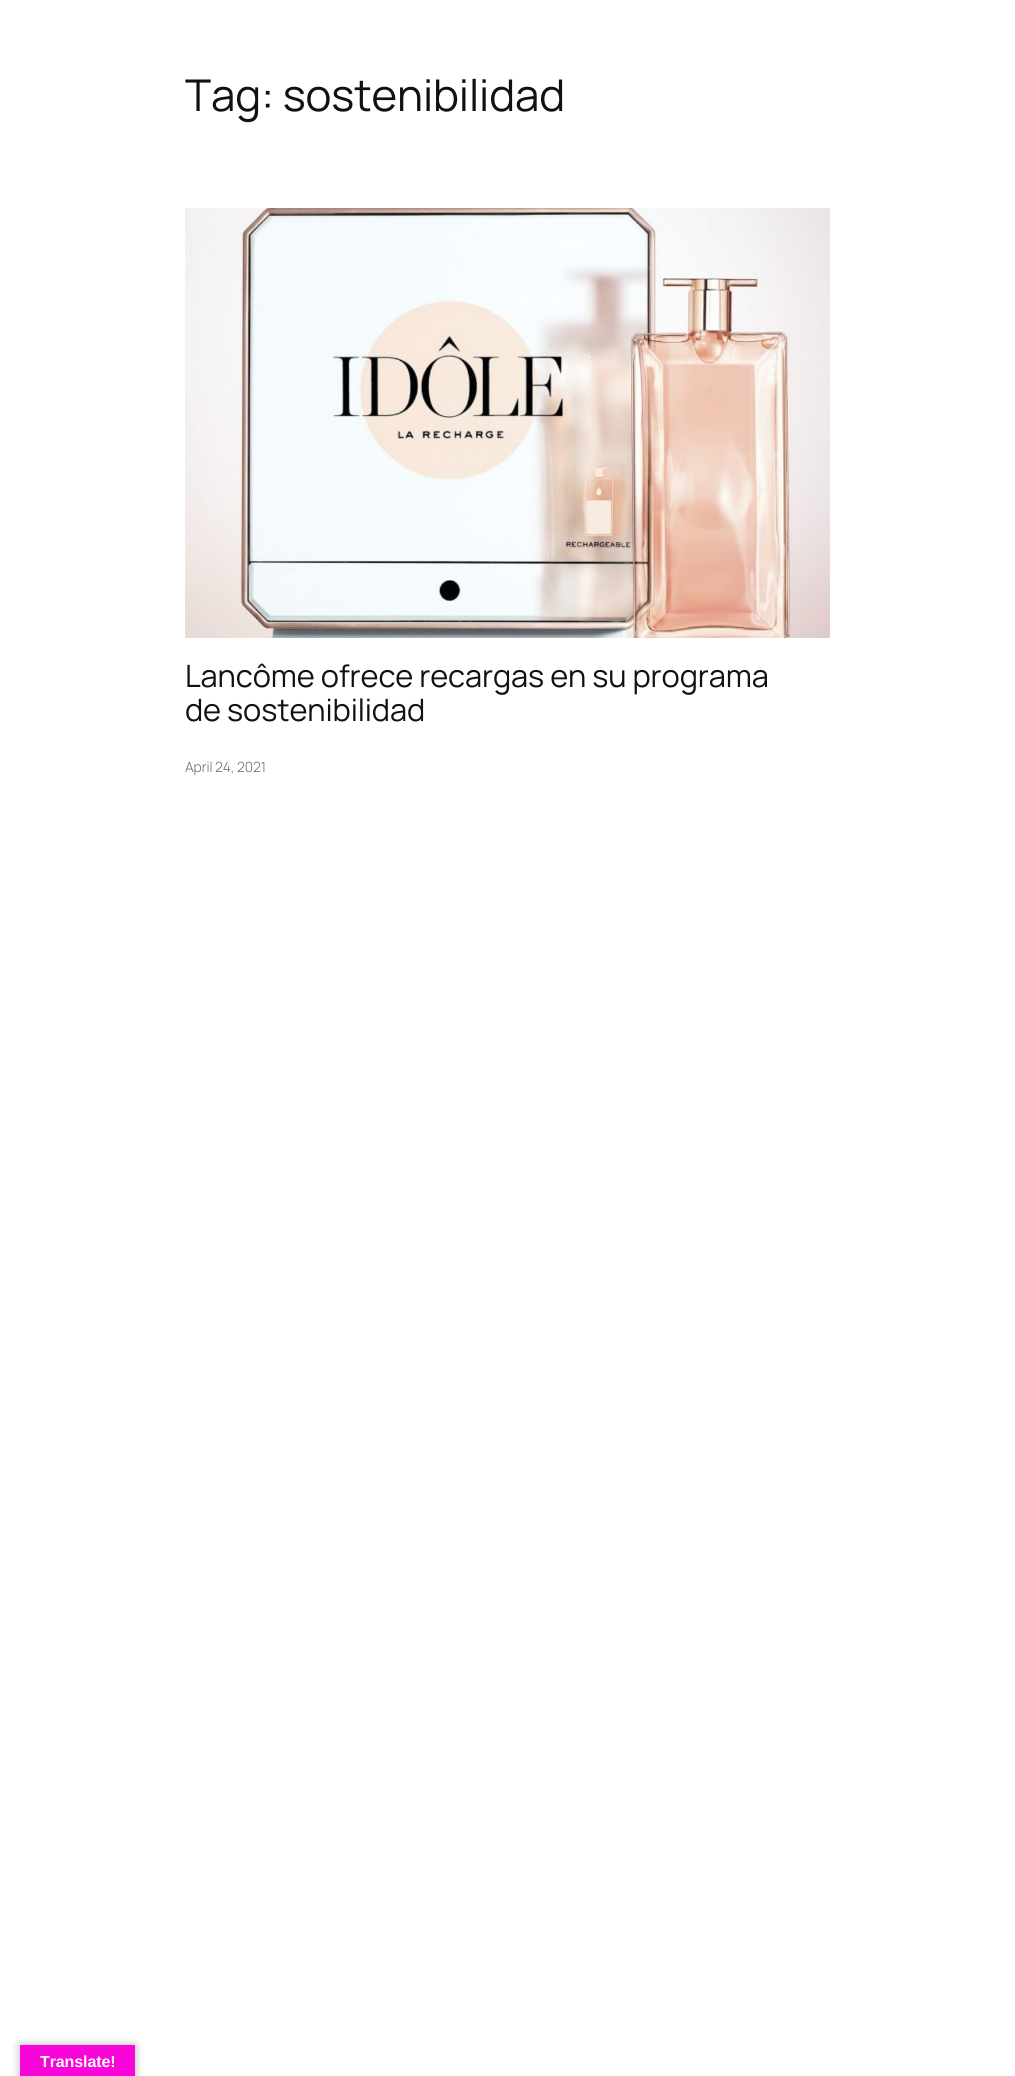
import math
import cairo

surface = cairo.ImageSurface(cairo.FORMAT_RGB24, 1015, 2076)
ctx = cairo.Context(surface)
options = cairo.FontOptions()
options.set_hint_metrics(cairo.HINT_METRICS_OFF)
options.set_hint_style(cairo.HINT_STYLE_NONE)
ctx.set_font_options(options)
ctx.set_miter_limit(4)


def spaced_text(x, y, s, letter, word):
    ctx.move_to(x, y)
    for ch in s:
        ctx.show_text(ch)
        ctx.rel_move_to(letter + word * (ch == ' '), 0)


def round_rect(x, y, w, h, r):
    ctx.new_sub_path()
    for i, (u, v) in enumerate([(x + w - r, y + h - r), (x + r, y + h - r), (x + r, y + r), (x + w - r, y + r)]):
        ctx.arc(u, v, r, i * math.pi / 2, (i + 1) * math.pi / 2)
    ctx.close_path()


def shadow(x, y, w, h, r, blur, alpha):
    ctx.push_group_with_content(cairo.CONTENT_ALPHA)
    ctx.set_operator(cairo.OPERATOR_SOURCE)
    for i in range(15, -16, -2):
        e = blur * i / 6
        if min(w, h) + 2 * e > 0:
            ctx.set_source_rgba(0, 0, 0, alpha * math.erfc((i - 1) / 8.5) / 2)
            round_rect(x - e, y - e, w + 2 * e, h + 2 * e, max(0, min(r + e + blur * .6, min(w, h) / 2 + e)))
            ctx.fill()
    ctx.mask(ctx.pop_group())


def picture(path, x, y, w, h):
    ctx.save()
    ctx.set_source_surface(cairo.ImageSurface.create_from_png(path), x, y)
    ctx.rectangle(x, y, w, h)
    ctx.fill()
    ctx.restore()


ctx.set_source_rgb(1, 1, 1)
ctx.paint()
ctx.select_font_face("Manrope")
ctx.set_font_size(43.75)
ctx.set_source_rgb(0.067, 0.067, 0.067)
spaced_text(185, 111, "Tag: sostenibilidad", -0.1, 0)
picture("img1.png", 185, 208, 645, 430)
ctx.set_font_size(30.75)
spaced_text(185, 687, "Lancôme ofrece recargas en su programa", -0.1, 0)
spaced_text(185, 721, "de sostenibilidad", -0.1, 0)
ctx.select_font_face("Manrope Light")
ctx.set_font_size(14)
ctx.set_source_rgb(0.408, 0.408, 0.408)
spaced_text(185, 772, "April 24, 2021", -0.1, 0)
ctx.set_source_rgb(0, 0, 0)
shadow(20, 2045, 115, 31, 0, 4.5, 0.3)
ctx.set_source_rgb(0.976, 0.016, 0.851)
ctx.rectangle(20, 2045, 115, 31)
ctx.fill()
ctx.select_font_face("Liberation Sans", cairo.FONT_SLANT_NORMAL, cairo.FONT_WEIGHT_BOLD)
ctx.set_font_size(16)
ctx.set_source_rgb(1, 1, 1)
spaced_text(40, 2067, "Translate!", -0.1, 0)
surface.write_to_png("page.png")
